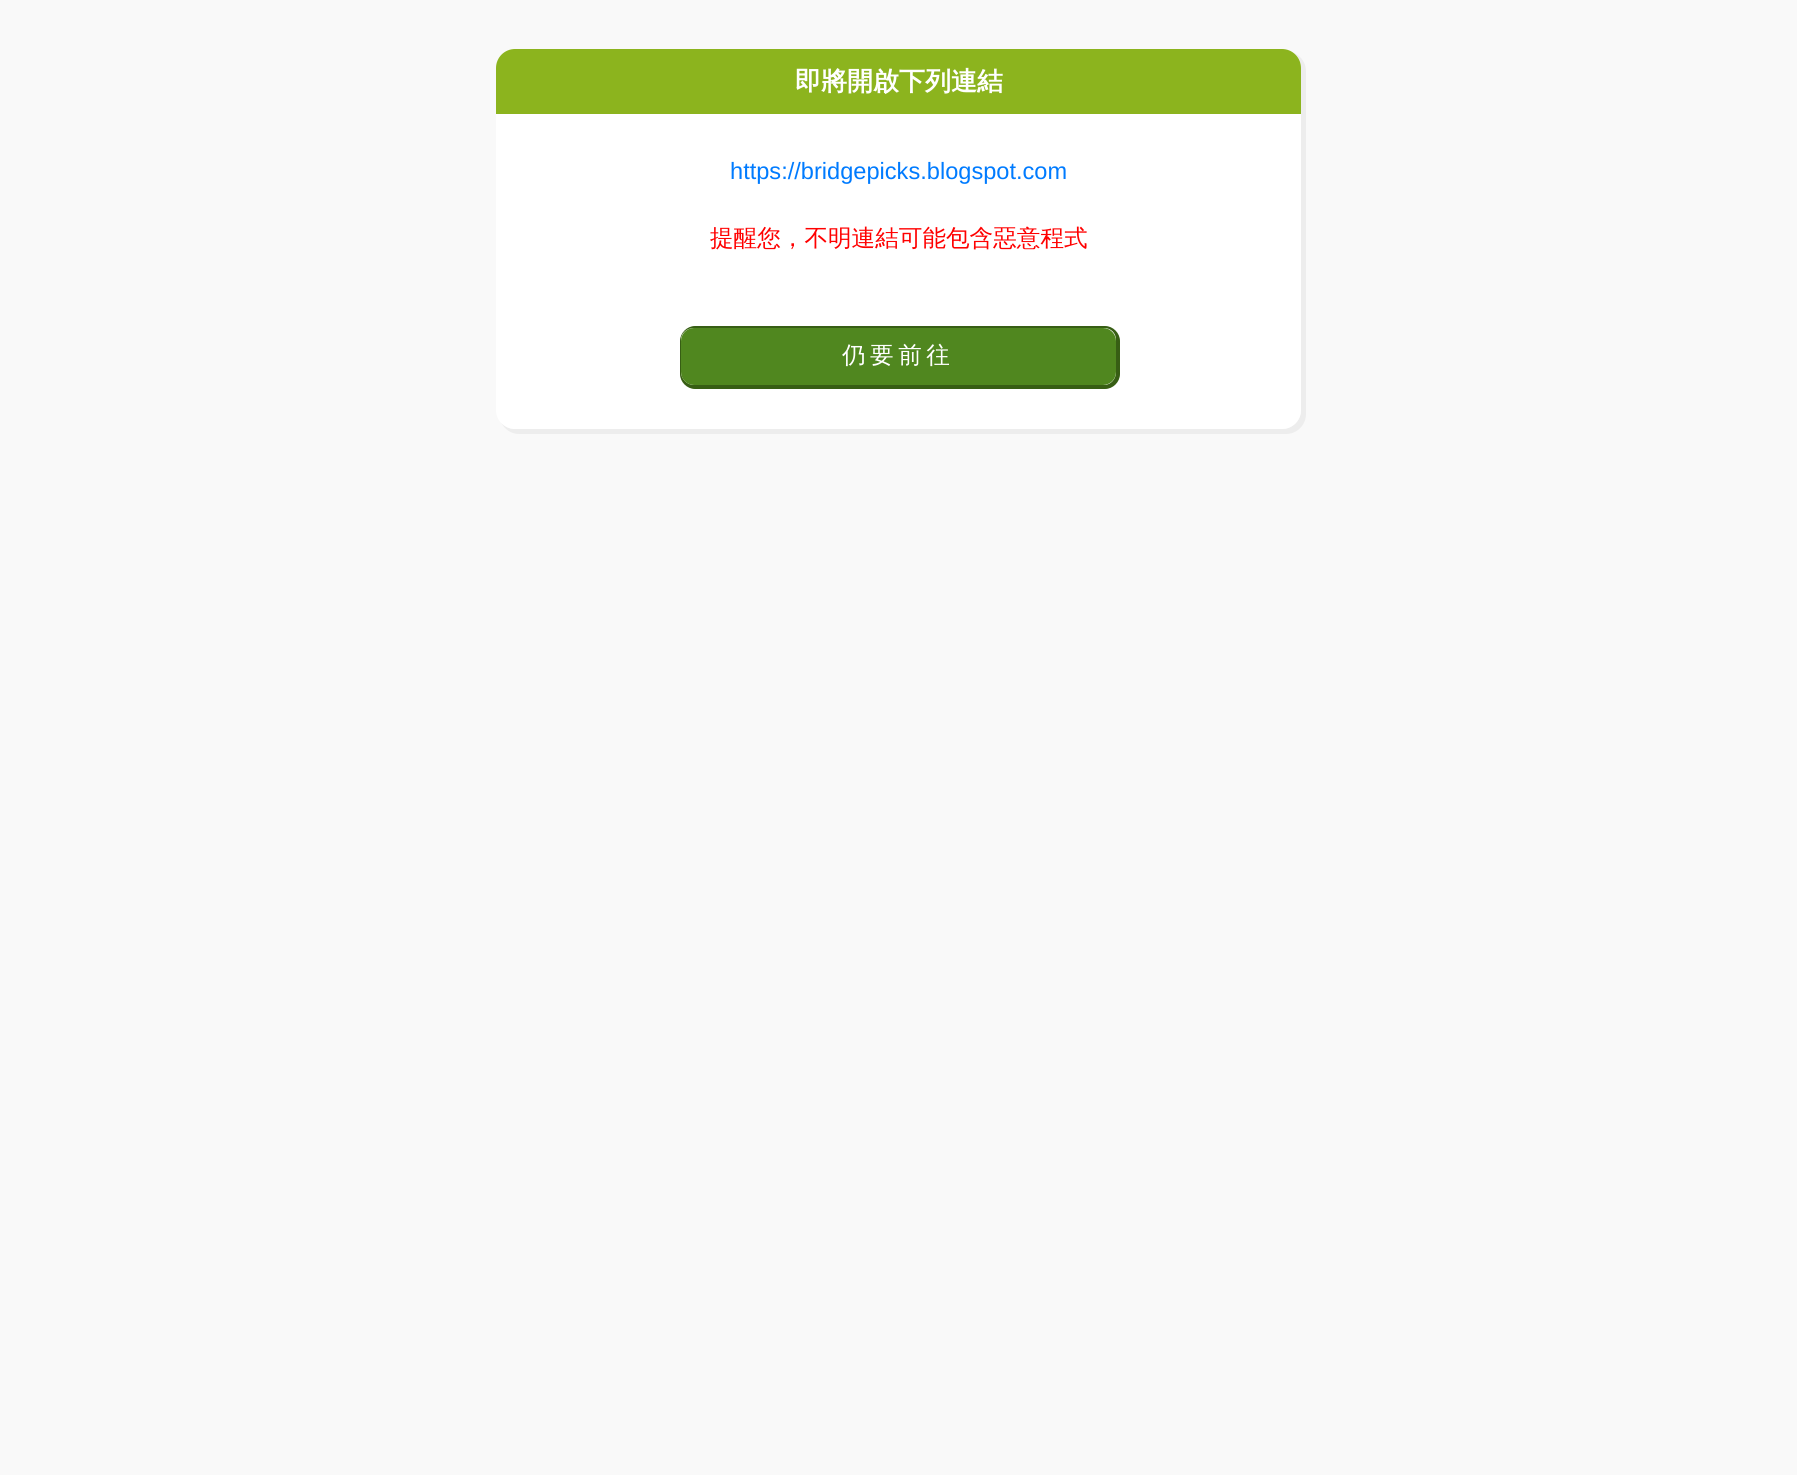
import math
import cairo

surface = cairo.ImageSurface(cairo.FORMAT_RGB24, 1797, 1475)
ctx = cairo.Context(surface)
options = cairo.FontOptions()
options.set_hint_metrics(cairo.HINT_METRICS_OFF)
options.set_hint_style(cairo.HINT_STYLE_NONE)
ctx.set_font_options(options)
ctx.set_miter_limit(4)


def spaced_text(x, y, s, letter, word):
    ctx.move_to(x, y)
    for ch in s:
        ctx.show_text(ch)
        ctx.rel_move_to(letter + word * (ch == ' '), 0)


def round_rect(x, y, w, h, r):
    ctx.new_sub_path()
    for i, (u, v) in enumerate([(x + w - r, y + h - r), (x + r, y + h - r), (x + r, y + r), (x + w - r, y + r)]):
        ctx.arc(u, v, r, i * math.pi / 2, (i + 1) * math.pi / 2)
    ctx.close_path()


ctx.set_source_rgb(0.973, 0.973, 0.973)
ctx.paint()
ctx.set_source_rgb(0.929, 0.929, 0.929)
ctx.new_path()
ctx.move_to(501, 422)
ctx.curve_to(504, 429, 511, 434, 519, 434)
ctx.line_to(1286, 434)
ctx.curve_to(1297, 434, 1306, 425, 1306, 414)
ctx.line_to(1306, 71)
ctx.curve_to(1306, 63, 1301, 56, 1294, 53)
ctx.curve_to(1298, 56, 1301, 61, 1301, 68)
ctx.line_to(1301, 410)
ctx.curve_to(1301, 420, 1293, 429, 1282, 429)
ctx.line_to(515, 429)
ctx.curve_to(509, 429, 504, 426, 501, 422)
ctx.close_path()
ctx.fill()
ctx.set_source_rgb(1, 1, 1)
round_rect(496, 49, 805, 380, 19)
ctx.fill()
ctx.set_source_rgb(0.549, 0.706, 0.118)
ctx.new_path()
ctx.move_to(515, 49)
ctx.line_to(1282, 49)
ctx.curve_to(1292.5, 49, 1301, 57.5, 1301, 68)
ctx.line_to(1301, 114)
ctx.line_to(496, 114)
ctx.line_to(496, 68)
ctx.curve_to(496, 57.5, 504.5, 49, 515, 49)
ctx.close_path()
ctx.fill()
ctx.select_font_face("WenQuanYi Zen Hei", cairo.FONT_SLANT_NORMAL, cairo.FONT_WEIGHT_BOLD)
ctx.set_font_size(26)
ctx.set_source_rgb(1, 1, 1)
ctx.move_to(795, 90)
ctx.show_text("即將開啟下列連結")
ctx.select_font_face("Liberation Sans")
ctx.set_font_size(23.6)
ctx.set_source_rgb(0, 0.482, 1)
ctx.move_to(730, 179)
ctx.show_text("https://bridgepicks.blogspot.com")
ctx.select_font_face("WenQuanYi Zen Hei Medium")
ctx.set_source_rgb(1, 0, 0)
ctx.move_to(710, 246)
ctx.show_text("提醒您，不明連結可能包含惡意程式")
ctx.set_source_rgb(0.216, 0.369, 0.082)
ctx.set_fill_rule(cairo.FILL_RULE_EVEN_ODD)
ctx.new_path()
ctx.move_to(695, 326)
ctx.curve_to(687, 326, 680, 333, 680, 341)
ctx.line_to(680, 374)
ctx.curve_to(680, 382, 687, 389, 695, 389)
ctx.line_to(1105, 389)
ctx.curve_to(1113, 389, 1120, 382, 1120, 374)
ctx.line_to(1120, 341)
ctx.curve_to(1120, 333, 1113, 326, 1105, 326)
ctx.close_path()
ctx.move_to(694, 328)
ctx.curve_to(687, 328, 681, 333, 681, 340)
ctx.line_to(681, 372)
ctx.curve_to(681, 379, 687, 385, 694, 385)
ctx.line_to(1104, 385)
ctx.curve_to(1111, 385, 1116, 379, 1116, 372)
ctx.line_to(1116, 340)
ctx.curve_to(1116, 333, 1111, 328, 1104, 328)
ctx.close_path()
ctx.fill()
ctx.set_source_rgb(0.314, 0.529, 0.122)
round_rect(681, 328, 435, 57, 13)
ctx.fill()
ctx.set_source_rgb(1, 1, 1)
spaced_text(842, 363, "仍要前往", 4.5, 0)
surface.write_to_png("page.png")
